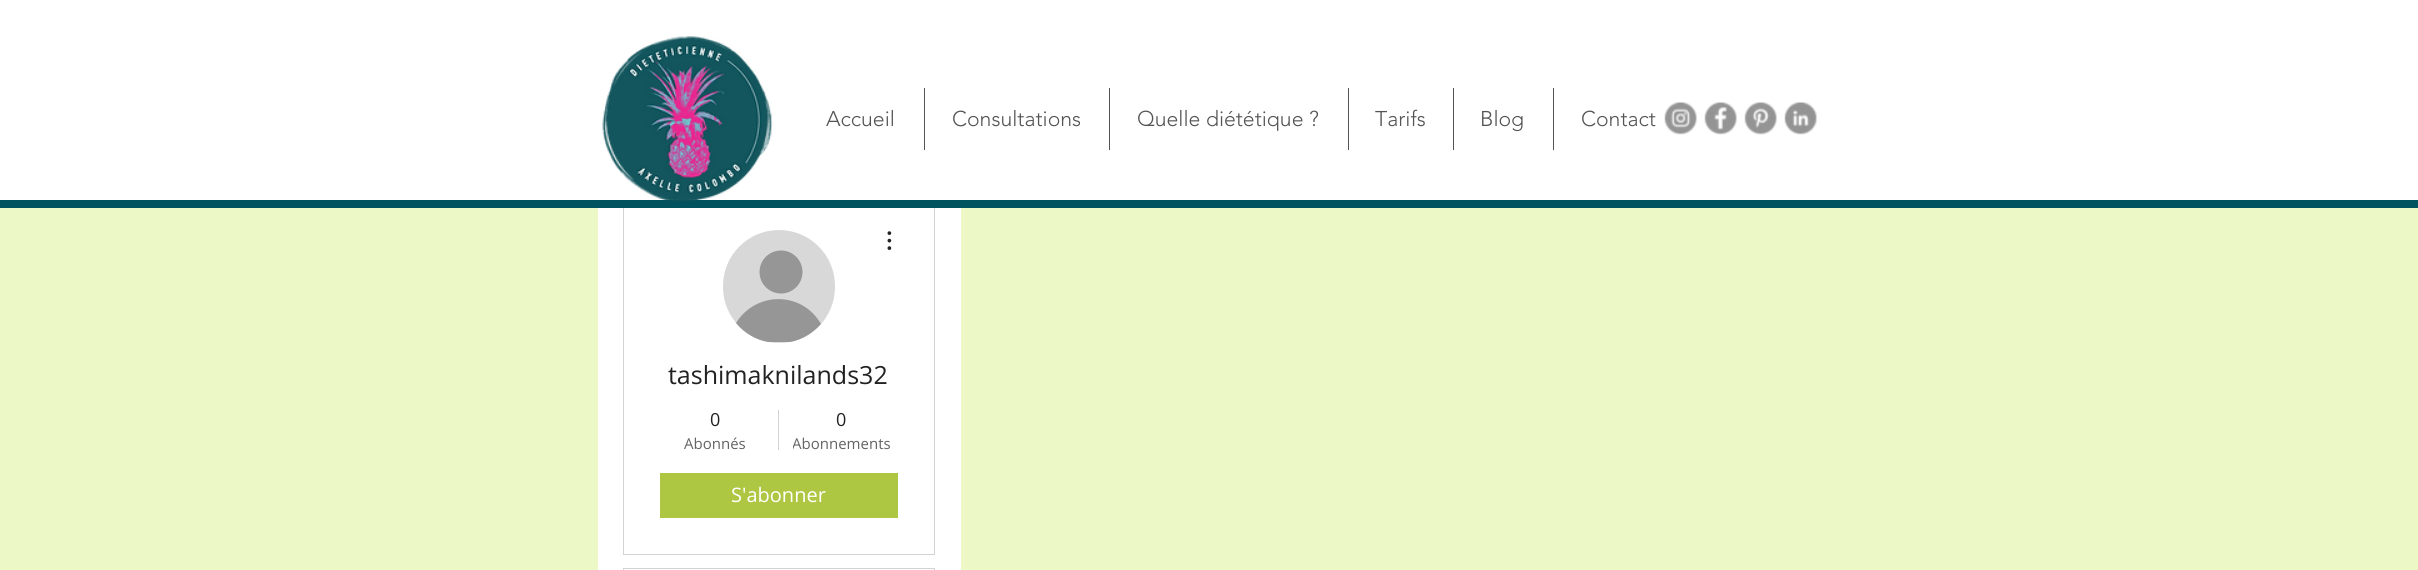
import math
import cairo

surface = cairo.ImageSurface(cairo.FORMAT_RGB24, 2418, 570)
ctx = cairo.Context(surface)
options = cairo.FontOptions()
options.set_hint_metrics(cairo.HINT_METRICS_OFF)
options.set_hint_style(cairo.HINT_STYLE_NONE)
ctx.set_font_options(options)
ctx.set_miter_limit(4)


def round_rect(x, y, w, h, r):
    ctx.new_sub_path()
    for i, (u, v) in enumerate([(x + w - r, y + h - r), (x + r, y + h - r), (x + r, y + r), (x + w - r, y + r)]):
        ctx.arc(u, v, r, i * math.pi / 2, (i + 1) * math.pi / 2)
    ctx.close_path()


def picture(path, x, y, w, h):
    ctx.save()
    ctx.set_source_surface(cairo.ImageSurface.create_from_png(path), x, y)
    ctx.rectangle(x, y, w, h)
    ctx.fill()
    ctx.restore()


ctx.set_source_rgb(0.929, 0.969, 0.78)
ctx.paint()
ctx.set_source_rgb(1, 1, 1)
ctx.rectangle(598, 208, 363, 362)
ctx.fill()
ctx.rectangle(623.5, 193.5, 311, 361)
ctx.set_source_rgb(0.827, 0.827, 0.827)
ctx.set_line_width(1)
ctx.stroke()
ctx.set_source_rgb(1, 1, 1)
ctx.rectangle(0, 0, 2418, 200)
ctx.fill()
ctx.set_source_rgb(0, 0.325, 0.373)
ctx.rectangle(0, 200, 2418, 8)
ctx.fill()
picture("img1.png", 602, 36, 171, 166)
ctx.select_font_face("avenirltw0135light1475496 Light")
ctx.set_font_size(21.25)
ctx.set_source_rgb(0.333, 0.325, 0.325)
ctx.move_to(826, 126)
ctx.show_text("Accueil")
ctx.rectangle(924, 88, 1, 62)
ctx.fill()
ctx.move_to(952, 126)
ctx.show_text("Consultations")
ctx.rectangle(1109, 88, 1, 62)
ctx.fill()
ctx.move_to(1137, 126)
ctx.show_text("Quelle diététique ?")
ctx.rectangle(1348, 88, 1, 62)
ctx.fill()
ctx.move_to(1375, 126)
ctx.show_text("Tarifs")
ctx.rectangle(1453, 88, 1, 62)
ctx.fill()
ctx.move_to(1480, 126)
ctx.show_text("Blog")
ctx.rectangle(1553, 88, 1, 62)
ctx.fill()
ctx.move_to(1581, 126)
ctx.show_text("Contact")
picture("img2.png", 1664, 102, 33, 33)
picture("img3.png", 1704, 102, 33, 33)
picture("img4.png", 1744, 102, 33, 33)
picture("img5.png", 1784, 102, 33, 33)
ctx.set_source_rgb(0.847, 0.847, 0.847)
round_rect(723, 230, 112, 113, 56)
ctx.fill()
ctx.set_source_rgb(0.588, 0.588, 0.588)
ctx.arc(781, 272, 21.5, 0, 2 * math.pi)
ctx.fill()
ctx.new_path()
ctx.move_to(768, 342)
ctx.curve_to(756, 340, 744, 333, 736, 323)
ctx.curve_to(756, 291, 802, 291, 821, 324)
ctx.curve_to(813, 333, 802, 340, 790, 342)
ctx.close_path()
ctx.fill()
picture("img6.png", 887, 231, 5, 19)
ctx.select_font_face("Open Sans")
ctx.set_font_size(25)
ctx.set_source_rgb(0.133, 0.133, 0.133)
ctx.move_to(668, 384)
ctx.show_text("tashimaknilands32")
ctx.set_font_size(18)
ctx.move_to(710, 426)
ctx.show_text("0")
ctx.set_font_size(15)
ctx.set_source_rgb(0.392, 0.392, 0.392)
ctx.move_to(684, 449)
ctx.show_text("Abonnés")
ctx.set_source_rgb(0.827, 0.827, 0.827)
ctx.rectangle(778, 410, 1, 40)
ctx.fill()
ctx.set_font_size(18)
ctx.set_source_rgb(0.133, 0.133, 0.133)
ctx.move_to(836, 426)
ctx.show_text("0")
ctx.save()
ctx.rectangle(793, 433, 97, 20)
ctx.clip()
ctx.set_font_size(15)
ctx.set_source_rgb(0.392, 0.392, 0.392)
ctx.move_to(792, 449)
ctx.show_text("Abonnements")
ctx.restore()
ctx.set_source_rgb(0.678, 0.78, 0.263)
ctx.rectangle(660, 473, 238, 45)
ctx.fill()
ctx.set_font_size(20)
ctx.set_source_rgb(1, 1, 1)
ctx.move_to(731, 502)
ctx.show_text("S'abonner")
ctx.rectangle(623.5, 568.5, 311, 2)
ctx.set_source_rgb(0.827, 0.827, 0.827)
ctx.stroke()
surface.write_to_png("page.png")
